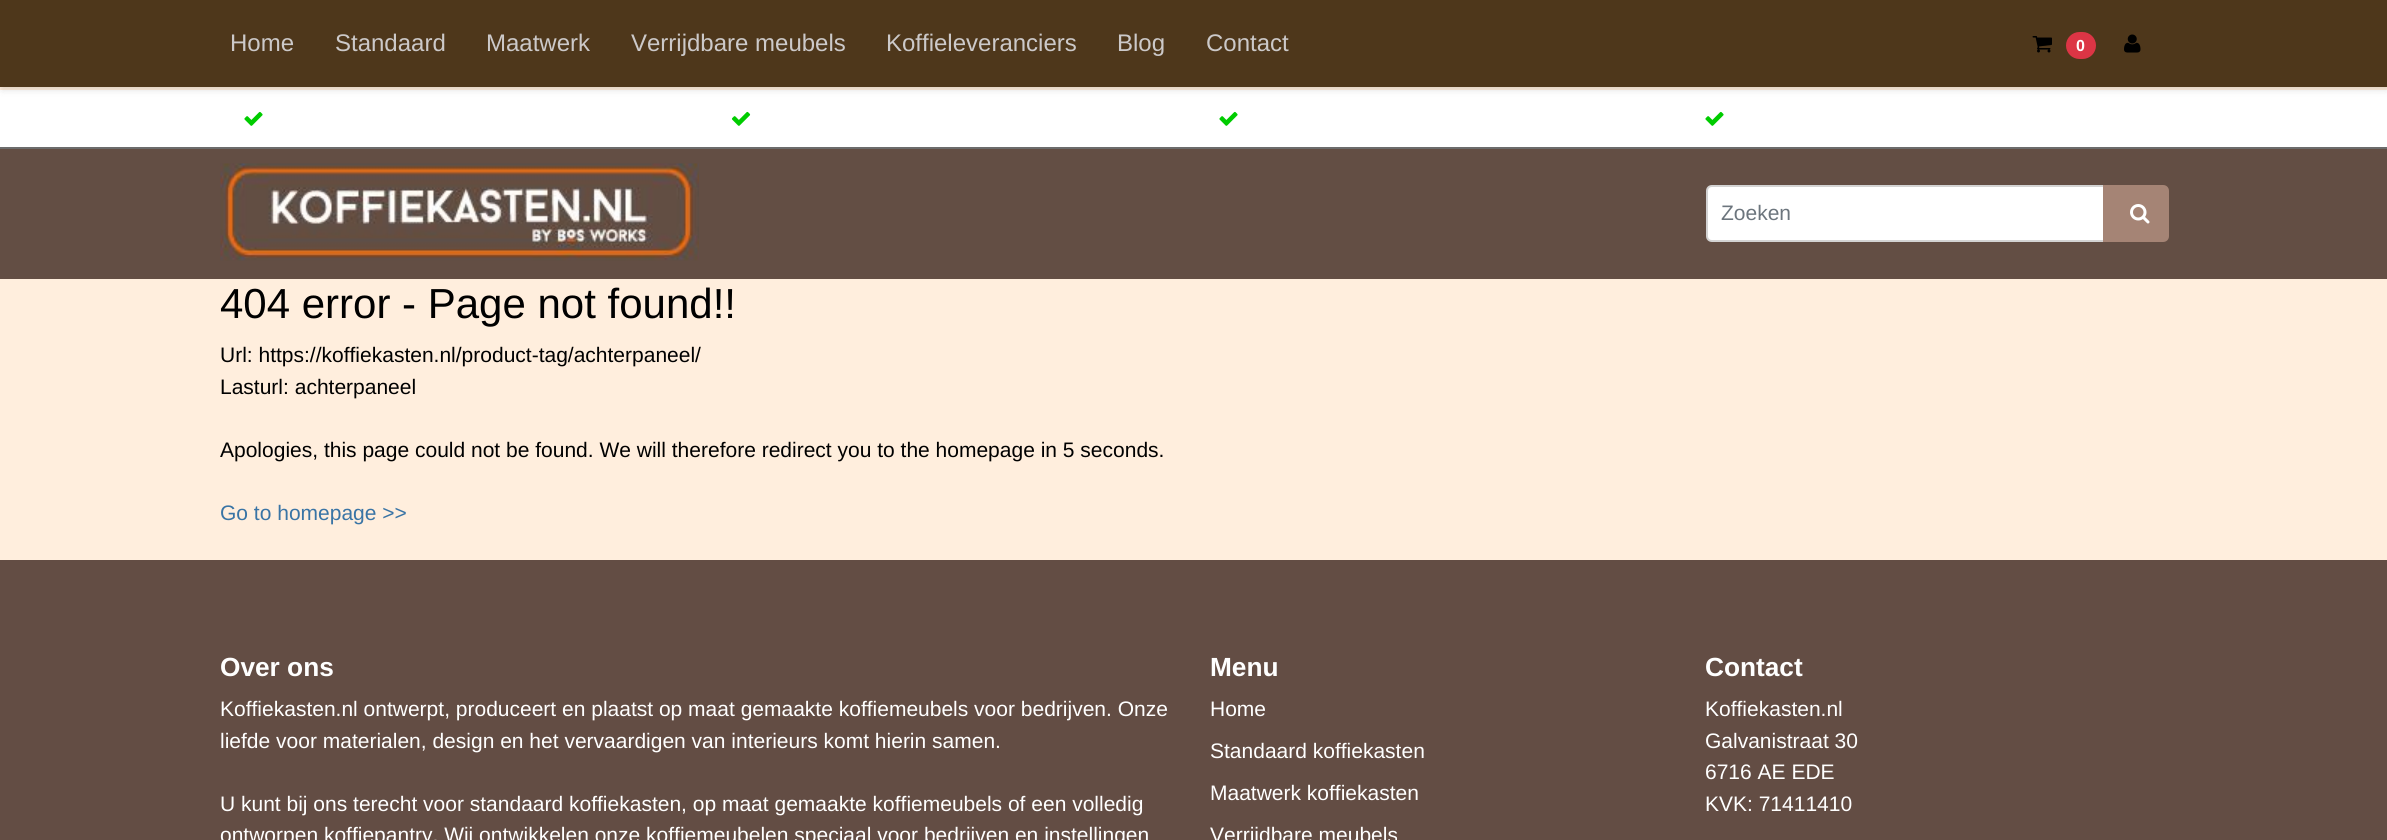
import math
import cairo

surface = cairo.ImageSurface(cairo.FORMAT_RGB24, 2387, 840)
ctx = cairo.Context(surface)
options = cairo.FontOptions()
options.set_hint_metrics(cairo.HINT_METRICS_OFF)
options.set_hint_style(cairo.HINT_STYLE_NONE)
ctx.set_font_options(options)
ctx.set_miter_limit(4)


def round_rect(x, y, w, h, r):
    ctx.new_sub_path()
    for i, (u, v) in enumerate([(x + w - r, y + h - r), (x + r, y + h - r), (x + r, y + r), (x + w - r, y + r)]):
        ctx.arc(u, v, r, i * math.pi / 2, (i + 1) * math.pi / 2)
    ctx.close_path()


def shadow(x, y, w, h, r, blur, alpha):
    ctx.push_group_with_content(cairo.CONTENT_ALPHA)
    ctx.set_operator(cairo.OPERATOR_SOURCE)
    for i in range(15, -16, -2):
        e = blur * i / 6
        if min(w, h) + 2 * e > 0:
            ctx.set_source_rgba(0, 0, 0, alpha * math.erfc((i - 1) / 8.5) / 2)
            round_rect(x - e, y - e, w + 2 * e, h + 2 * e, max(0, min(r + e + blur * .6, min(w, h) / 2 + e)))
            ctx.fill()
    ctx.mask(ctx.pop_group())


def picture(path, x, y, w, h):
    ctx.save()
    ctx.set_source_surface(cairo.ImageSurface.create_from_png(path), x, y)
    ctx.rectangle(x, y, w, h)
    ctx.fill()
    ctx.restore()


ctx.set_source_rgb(1, 0.933, 0.867)
ctx.paint()
ctx.set_source_rgb(1, 1, 1)
ctx.rectangle(0, 90, 2387, 57)
ctx.fill()
ctx.set_source_rgb(0, 0, 0)
shadow(2, 5, 2385, 84, 0, 3, 0.06)
shadow(2, 5, 2385, 84, 0, 4.5, 0.1)
ctx.set_source_rgb(0.306, 0.216, 0.106)
ctx.rectangle(0, 0, 2387, 87)
ctx.fill()
ctx.select_font_face("Liberation Sans")
ctx.set_font_size(24)
ctx.set_source_rgb(0.8, 0.788, 0.788)
ctx.move_to(230, 51)
ctx.show_text("Home")
ctx.move_to(335, 51)
ctx.show_text("Standaard")
ctx.move_to(486, 51)
ctx.show_text("Maatwerk")
ctx.move_to(631, 51)
ctx.show_text("Verrijdbare meubels")
ctx.move_to(886, 51)
ctx.show_text("Koffieleveranciers")
ctx.move_to(1117, 51)
ctx.show_text("Blog")
ctx.move_to(1206, 51)
ctx.show_text("Contact")
picture("img1.png", 2032, 36, 20, 17)
ctx.set_source_rgb(0.863, 0.208, 0.271)
round_rect(2066, 32, 30, 27, 13.5)
ctx.fill()
ctx.select_font_face("Liberation Sans", cairo.FONT_SLANT_NORMAL, cairo.FONT_WEIGHT_BOLD)
ctx.set_font_size(16)
ctx.set_source_rgb(1, 1, 1)
ctx.move_to(2076, 51)
ctx.show_text("0")
picture("img2.png", 2124, 34, 17, 19)
picture("img3.png", 244, 111, 19, 15)
picture("img4.png", 731, 111, 20, 15)
picture("img3.png", 1219, 111, 19, 15)
picture("img3.png", 1705, 111, 19, 15)
ctx.set_source_rgb(0.388, 0.306, 0.267)
ctx.rectangle(0, 149, 2387, 130)
ctx.fill()
ctx.set_source_rgb(0.424, 0.424, 0.424)
ctx.rectangle(0, 147, 2387, 2)
ctx.fill()
picture("img5.png", 220, 163, 479, 98)
ctx.set_source_rgb(1, 1, 1)
ctx.new_path()
ctx.move_to(1712, 186)
ctx.line_to(2104, 186)
ctx.line_to(2104, 241)
ctx.line_to(1712, 241)
ctx.curve_to(1709, 241, 1707, 239, 1707, 236)
ctx.line_to(1707, 191)
ctx.curve_to(1707, 188, 1709, 186, 1712, 186)
ctx.close_path()
ctx.fill_preserve()
ctx.set_source_rgb(0.827, 0.827, 0.827)
ctx.stroke()
ctx.select_font_face("Liberation Sans")
ctx.set_font_size(21)
ctx.set_source_rgb(0.424, 0.459, 0.49)
ctx.move_to(1721, 220)
ctx.show_text("Zoeken")
ctx.set_source_rgb(0.647, 0.518, 0.459)
ctx.new_path()
ctx.move_to(2103, 185)
ctx.line_to(2163, 185)
ctx.curve_to(2166.5, 185, 2169, 187.5, 2169, 191)
ctx.line_to(2169, 236)
ctx.curve_to(2169, 239.5, 2166.5, 242, 2163, 242)
ctx.line_to(2103, 242)
ctx.close_path()
ctx.fill()
picture("img6.png", 2130, 204, 20, 20)
ctx.set_font_size(42)
ctx.set_source_rgb(0, 0, 0)
ctx.move_to(220, 318)
ctx.show_text("404 error - Page not found!!")
ctx.set_font_size(21)
ctx.move_to(220, 362)
ctx.show_text("Url: https://koffiekasten.nl/product-tag/achterpaneel/")
ctx.move_to(220, 394)
ctx.show_text("Lasturl: achterpaneel")
ctx.move_to(220, 457)
ctx.show_text("Apologies, this page could not be found. We will therefore redirect you to the homepage in 5 seconds.")
ctx.set_source_rgb(0.224, 0.455, 0.647)
ctx.move_to(220, 520)
ctx.show_text("Go to homepage >>")
ctx.set_source_rgb(0.388, 0.302, 0.267)
ctx.rectangle(0, 560, 2387, 280)
ctx.fill()
ctx.select_font_face("Liberation Sans", cairo.FONT_SLANT_NORMAL, cairo.FONT_WEIGHT_BOLD)
ctx.set_font_size(26.25)
ctx.set_source_rgb(1, 1, 1)
ctx.move_to(220, 676)
ctx.show_text("Over ons")
ctx.select_font_face("Liberation Sans")
ctx.set_font_size(21)
ctx.move_to(220, 716)
ctx.show_text("Koffiekasten.nl ontwerpt, produceert en plaatst op maat gemaakte koffiemeubels voor bedrijven. Onze")
ctx.move_to(220, 748)
ctx.show_text("liefde voor materialen, design en het vervaardigen van interieurs komt hierin samen.")
ctx.move_to(220, 811)
ctx.show_text("U kunt bij ons terecht voor standaard koffiekasten, op maat gemaakte koffiemeubels of een volledig")
ctx.move_to(220, 842)
ctx.show_text("ontworpen koffiepantry. Wij ontwikkelen onze koffiemeubelen speciaal voor bedrijven en instellingen")
ctx.select_font_face("Liberation Sans", cairo.FONT_SLANT_NORMAL, cairo.FONT_WEIGHT_BOLD)
ctx.set_font_size(26.25)
ctx.move_to(1210, 676)
ctx.show_text("Menu")
ctx.select_font_face("Liberation Sans")
ctx.set_font_size(21)
ctx.move_to(1210, 716)
ctx.show_text("Home")
ctx.move_to(1210, 758)
ctx.show_text("Standaard koffiekasten")
ctx.move_to(1210, 800)
ctx.show_text("Maatwerk koffiekasten")
ctx.move_to(1210, 842)
ctx.show_text("Verrijdbare meubels")
ctx.select_font_face("Liberation Sans", cairo.FONT_SLANT_NORMAL, cairo.FONT_WEIGHT_BOLD)
ctx.set_font_size(26.25)
ctx.move_to(1705, 676)
ctx.show_text("Contact")
ctx.select_font_face("Liberation Sans")
ctx.set_font_size(21)
ctx.move_to(1705, 716)
ctx.show_text("Koffiekasten.nl")
ctx.move_to(1705, 748)
ctx.show_text("Galvanistraat 30")
ctx.move_to(1705, 779)
ctx.show_text("6716 AE EDE")
ctx.move_to(1705, 811)
ctx.show_text("KVK: 71411410")
surface.write_to_png("page.png")
